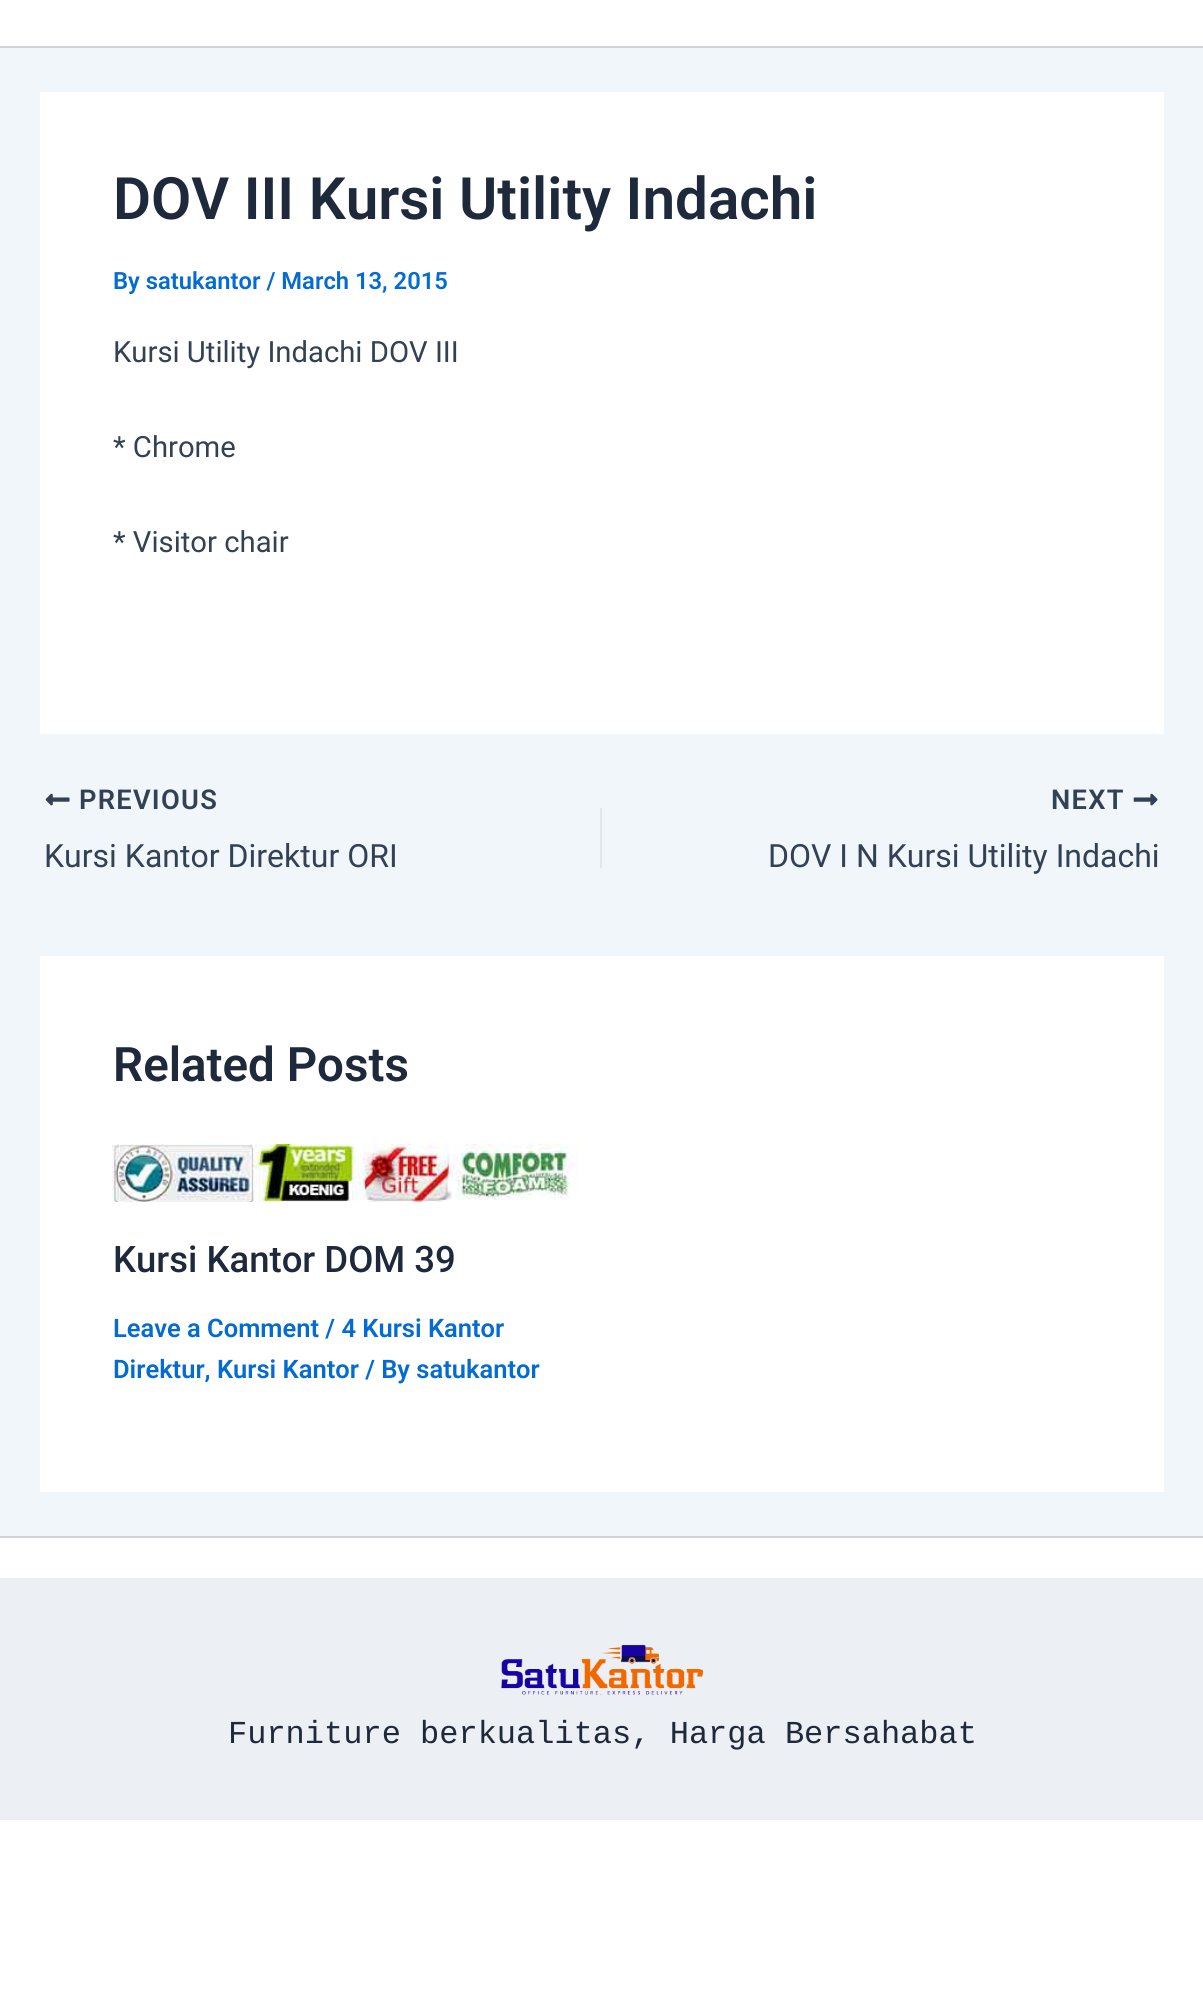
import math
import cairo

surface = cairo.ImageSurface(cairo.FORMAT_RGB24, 1203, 1992)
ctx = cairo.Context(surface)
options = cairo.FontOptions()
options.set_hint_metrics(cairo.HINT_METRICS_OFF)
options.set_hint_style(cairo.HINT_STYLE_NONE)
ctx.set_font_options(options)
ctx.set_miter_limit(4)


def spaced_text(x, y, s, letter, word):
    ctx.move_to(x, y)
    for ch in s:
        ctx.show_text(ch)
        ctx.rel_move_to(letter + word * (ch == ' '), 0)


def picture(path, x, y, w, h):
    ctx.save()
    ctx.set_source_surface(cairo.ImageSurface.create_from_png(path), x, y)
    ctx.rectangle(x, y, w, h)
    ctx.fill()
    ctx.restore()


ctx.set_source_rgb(0.941, 0.961, 0.98)
ctx.paint()
ctx.set_source_rgb(1, 1, 1)
ctx.rectangle(0, 0, 1203, 46)
ctx.fill()
ctx.set_source_rgb(0.82, 0.835, 0.859)
ctx.rectangle(0, 46, 1203, 2)
ctx.fill()
ctx.set_source_rgb(1, 1, 1)
ctx.rectangle(40, 92, 1124, 642)
ctx.fill()
ctx.select_font_face("Roboto SemiBold")
ctx.set_font_size(58.4)
ctx.set_source_rgb(0.118, 0.161, 0.231)
ctx.move_to(113, 219)
ctx.show_text("DOV III Kursi Utility Indachi")
ctx.set_font_size(23.75)
ctx.set_source_rgb(0.016, 0.42, 0.824)
ctx.move_to(113, 289)
ctx.show_text("By satukantor / March 13, 2015")
ctx.select_font_face("Roboto")
ctx.set_font_size(29.25)
ctx.set_source_rgb(0.2, 0.255, 0.333)
ctx.move_to(113, 362)
ctx.show_text("Kursi Utility Indachi DOV III")
ctx.move_to(113, 457)
ctx.show_text("* Chrome")
ctx.move_to(113, 552)
ctx.show_text("* Visitor chair")
picture("img1.png", 45, 793, 25, 13)
ctx.select_font_face("Roboto SemiBold")
ctx.set_font_size(27.25)
spaced_text(79, 809, "PREVIOUS", 1.25, 0)
ctx.select_font_face("Roboto")
ctx.set_font_size(32)
ctx.move_to(44, 867)
ctx.show_text("Kursi Kantor Direktur ORI")
ctx.set_source_rgb(0.882, 0.91, 0.929)
ctx.rectangle(600, 808, 2, 60)
ctx.fill()
ctx.select_font_face("Roboto SemiBold")
ctx.set_font_size(27.25)
ctx.set_source_rgb(0.2, 0.255, 0.333)
spaced_text(1051, 809, "NEXT", 1.25, 0)
picture("img2.png", 1133, 793, 25, 13)
ctx.select_font_face("Roboto")
ctx.set_font_size(32)
ctx.move_to(768, 867)
ctx.show_text("DOV I N Kursi Utility Indachi")
ctx.set_source_rgb(1, 1, 1)
ctx.rectangle(40, 956, 1124, 536)
ctx.fill()
ctx.select_font_face("Roboto SemiBold")
ctx.set_font_size(47.5)
ctx.set_source_rgb(0.118, 0.161, 0.231)
ctx.move_to(113, 1081)
ctx.show_text("Related Posts")
picture("img3.png", 112, 1144, 466, 58)
ctx.select_font_face("Roboto Medium")
ctx.set_font_size(36.5)
ctx.move_to(113, 1272)
ctx.show_text("Kursi Kantor DOM 39")
ctx.select_font_face("Roboto SemiBold")
ctx.set_font_size(25.5)
ctx.set_source_rgb(0.016, 0.42, 0.824)
ctx.move_to(113, 1337)
ctx.show_text("Leave a Comment / 4 Kursi Kantor")
ctx.move_to(113, 1378)
ctx.show_text("Direktur, Kursi Kantor / By satukantor")
ctx.set_source_rgb(1, 1, 1)
ctx.rectangle(0, 1538, 1203, 454)
ctx.fill()
ctx.set_source_rgb(0.82, 0.835, 0.859)
ctx.rectangle(0, 1536, 1203, 2)
ctx.fill()
ctx.set_source_rgb(0.925, 0.937, 0.953)
ctx.rectangle(0, 1578, 1203, 242)
ctx.fill()
picture("img4.png", 501, 1644, 203, 51)
ctx.select_font_face("Liberation Mono")
ctx.set_font_size(32)
ctx.set_source_rgb(0.118, 0.161, 0.231)
ctx.move_to(228, 1743)
ctx.show_text("Furniture berkualitas, Harga Bersahabat")
surface.write_to_png("page.png")
